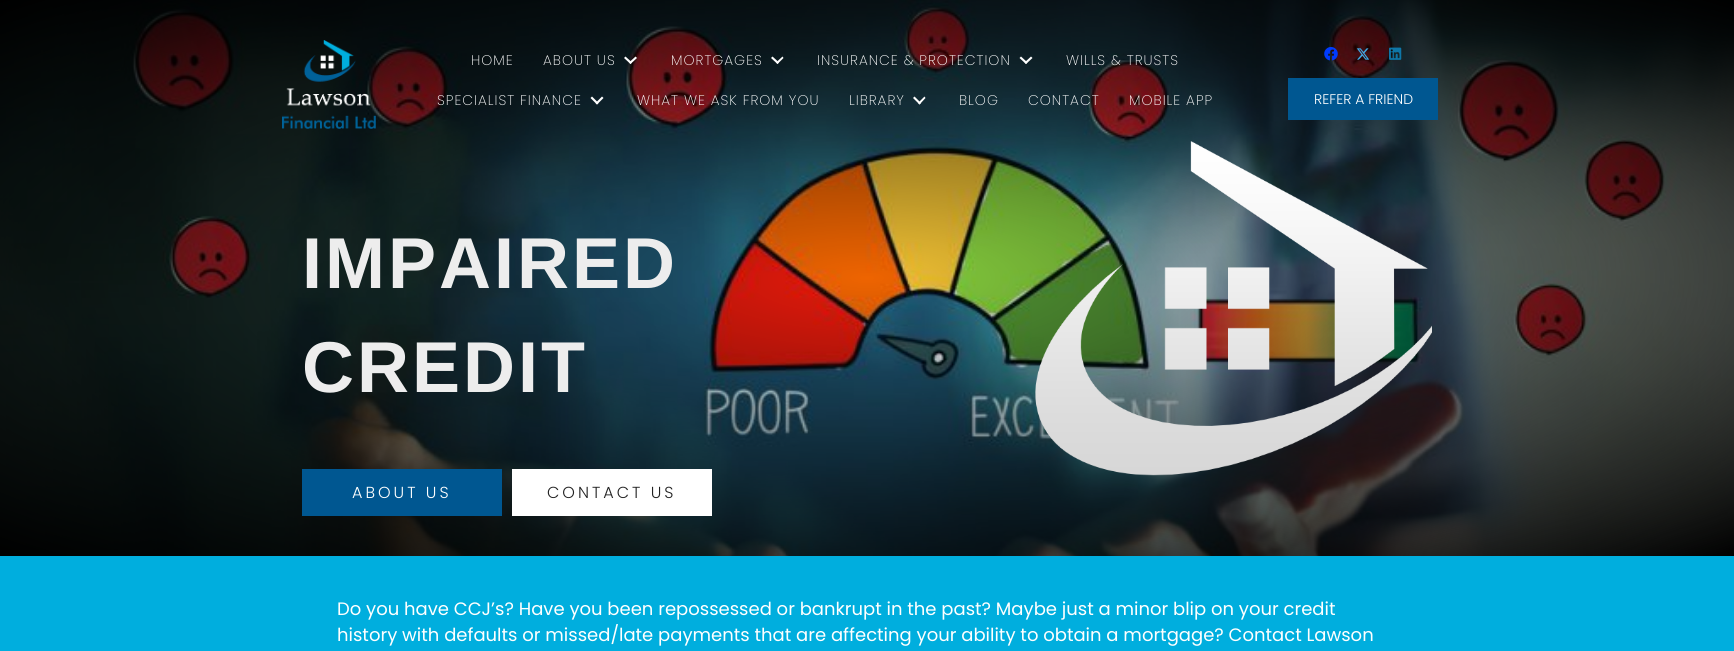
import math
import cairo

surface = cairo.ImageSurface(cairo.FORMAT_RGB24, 1734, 651)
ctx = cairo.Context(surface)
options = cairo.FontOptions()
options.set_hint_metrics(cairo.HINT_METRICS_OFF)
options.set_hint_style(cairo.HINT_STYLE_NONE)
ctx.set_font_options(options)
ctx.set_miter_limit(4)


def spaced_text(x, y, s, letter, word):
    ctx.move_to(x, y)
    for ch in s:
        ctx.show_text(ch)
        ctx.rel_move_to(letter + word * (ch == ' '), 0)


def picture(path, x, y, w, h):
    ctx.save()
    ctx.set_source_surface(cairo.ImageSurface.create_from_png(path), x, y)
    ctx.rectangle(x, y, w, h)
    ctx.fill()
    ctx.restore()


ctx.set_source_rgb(1, 1, 1)
ctx.paint()
picture("img1.png", 0, 0, 1734, 556)
picture("img2.png", 282, 40, 94, 89)
ctx.select_font_face("Poppins ExtraLight")
ctx.set_font_size(14)
ctx.set_source_rgb(1, 1, 1)
spaced_text(471, 65, "HOME", 1, 0)
spaced_text(543, 65, "ABOUT US", 1, 0)
ctx.new_path()
ctx.move_to(635.5, 56.5)
ctx.line_to(637, 58)
ctx.line_to(630.5, 64)
ctx.line_to(629, 62.5)
ctx.close_path()
ctx.fill()
ctx.new_path()
ctx.move_to(625.5, 56.5)
ctx.line_to(632, 62.5)
ctx.line_to(630.5, 64)
ctx.line_to(624, 58)
ctx.close_path()
ctx.fill()
spaced_text(671, 65, "MORTGAGES", 1, 0)
ctx.new_path()
ctx.move_to(782.5, 56.5)
ctx.line_to(783.5, 58)
ctx.line_to(777.5, 64)
ctx.line_to(776, 62.5)
ctx.close_path()
ctx.fill()
ctx.new_path()
ctx.move_to(772.5, 56.5)
ctx.line_to(779, 62.5)
ctx.line_to(777.5, 64)
ctx.line_to(771, 58)
ctx.close_path()
ctx.fill()
spaced_text(817, 65, "INSURANCE & PROTECTION", 1, 0)
ctx.new_path()
ctx.move_to(1031, 56.5)
ctx.line_to(1032.5, 58)
ctx.line_to(1026, 64)
ctx.line_to(1024.5, 62.5)
ctx.close_path()
ctx.fill()
ctx.new_path()
ctx.move_to(1021, 56.5)
ctx.line_to(1027.5, 62.5)
ctx.line_to(1026, 64)
ctx.line_to(1019.5, 58)
ctx.close_path()
ctx.fill()
spaced_text(1066, 65, "WILLS & TRUSTS", 1, 0)
spaced_text(437, 105, "SPECIALIST FINANCE", 1, 0)
ctx.new_path()
ctx.move_to(602, 96.5)
ctx.line_to(603.5, 98)
ctx.line_to(597, 104.5)
ctx.line_to(595.5, 103)
ctx.close_path()
ctx.fill()
ctx.new_path()
ctx.move_to(592, 96.5)
ctx.line_to(598.5, 103)
ctx.line_to(597, 104.5)
ctx.line_to(590.5, 98)
ctx.close_path()
ctx.fill()
spaced_text(637, 105, "WHAT WE ASK FROM YOU", 1, 0)
spaced_text(849, 105, "LIBRARY", 1, 0)
ctx.new_path()
ctx.move_to(924.5, 96.5)
ctx.line_to(925.5, 98)
ctx.line_to(919.5, 104.5)
ctx.line_to(918, 103)
ctx.close_path()
ctx.fill()
ctx.new_path()
ctx.move_to(914.5, 96.5)
ctx.line_to(921, 103)
ctx.line_to(919.5, 104.5)
ctx.line_to(913, 98)
ctx.close_path()
ctx.fill()
spaced_text(959, 105, "BLOG", 1, 0)
spaced_text(1028, 105, "CONTACT", 1, 0)
spaced_text(1129, 105, "MOBILE APP", 1, 0)
picture("img3.png", 1324, 47, 14, 14)
picture("img4.png", 1356, 48, 14, 12)
picture("img5.png", 1389, 47, 13, 13)
ctx.set_source_rgb(0, 0.341, 0.569)
ctx.rectangle(1288, 78, 150, 42)
ctx.fill()
ctx.select_font_face("Poppins Light")
ctx.set_source_rgb(1, 1, 1)
ctx.move_to(1314, 104)
ctx.show_text("REFER A FRIEND")
ctx.select_font_face("Liberation Sans", cairo.FONT_SLANT_NORMAL, cairo.FONT_WEIGHT_BOLD)
ctx.set_font_size(72)
ctx.set_source_rgb(0.929, 0.929, 0.929)
spaced_text(302, 288, "IMPAIRED", 3, 0)
spaced_text(302, 392, "CREDIT", 3, 0)
ctx.set_source_rgb(0, 0.341, 0.569)
ctx.rectangle(302, 469, 200, 47)
ctx.fill()
ctx.select_font_face("Poppins Light")
ctx.set_font_size(16)
ctx.set_source_rgb(1, 1, 1)
spaced_text(352, 498, "ABOUT US", 3, 0)
ctx.rectangle(512, 469, 200, 47)
ctx.fill()
ctx.set_source_rgb(0.129, 0.129, 0.129)
spaced_text(547, 498, "CONTACT US", 3, 0)
picture("img6.png", 1035, 141, 397, 335)
ctx.set_source_rgb(0, 0.682, 0.871)
ctx.rectangle(0, 556, 1734, 95)
ctx.fill()
ctx.select_font_face("Poppins")
ctx.set_font_size(18)
ctx.set_source_rgb(1, 1, 1)
ctx.move_to(337, 615)
ctx.show_text("Do you have CCJ’s? Have you been repossessed or bankrupt in the past? Maybe just a minor blip on your credit")
ctx.move_to(337, 641)
ctx.show_text("history with defaults or missed/late payments that are affecting your ability to obtain a mortgage? Contact Lawson")
surface.write_to_png("page.png")
